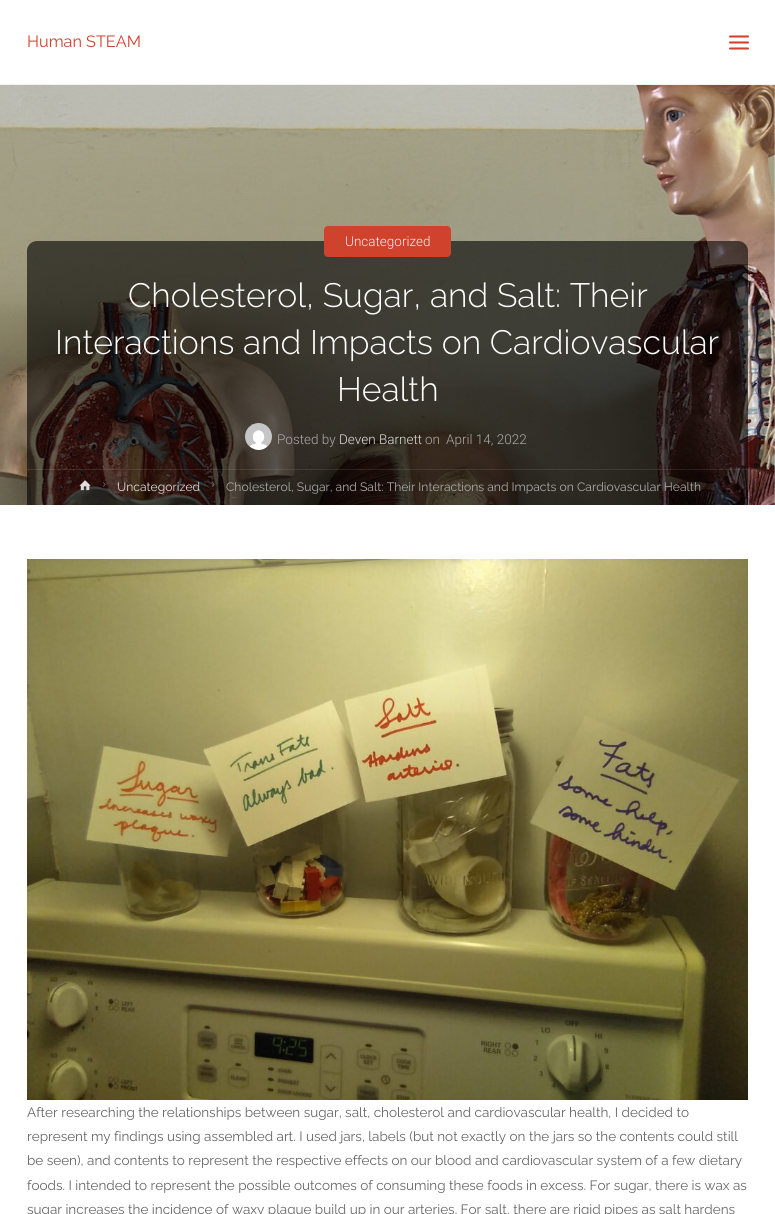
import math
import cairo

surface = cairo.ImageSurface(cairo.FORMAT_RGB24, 775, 1214)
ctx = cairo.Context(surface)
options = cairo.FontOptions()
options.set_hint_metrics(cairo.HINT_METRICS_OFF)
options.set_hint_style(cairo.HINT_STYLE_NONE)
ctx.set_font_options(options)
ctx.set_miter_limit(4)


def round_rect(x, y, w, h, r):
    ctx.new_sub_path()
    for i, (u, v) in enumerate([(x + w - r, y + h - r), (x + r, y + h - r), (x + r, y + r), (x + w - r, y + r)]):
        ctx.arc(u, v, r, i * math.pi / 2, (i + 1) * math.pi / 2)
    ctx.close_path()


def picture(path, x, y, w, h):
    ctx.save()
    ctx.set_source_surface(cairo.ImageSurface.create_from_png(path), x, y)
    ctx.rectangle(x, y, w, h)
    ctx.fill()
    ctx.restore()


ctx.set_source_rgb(1, 1, 1)
ctx.paint()
ctx.set_source_rgb(0.949, 0.949, 0.949)
ctx.rectangle(0, 84, 775, 1)
ctx.fill()
ctx.select_font_face("Raleway")
ctx.set_font_size(16.25)
ctx.set_source_rgb(0.816, 0.259, 0.173)
ctx.move_to(27, 47)
ctx.show_text("Human STEAM")
picture("img1.png", 729, 35, 20, 15)
picture("img2.png", 0, 85, 775, 420)
ctx.set_source_rgba(0, 0, 0, 0.6)
ctx.new_path()
ctx.move_to(37, 241)
ctx.line_to(738, 241)
ctx.curve_to(743.5, 241, 748, 245.5, 748, 251)
ctx.line_to(748, 505)
ctx.line_to(27, 505)
ctx.line_to(27, 251)
ctx.curve_to(27, 245.5, 31.5, 241, 37, 241)
ctx.close_path()
ctx.fill()
ctx.set_source_rgb(0.816, 0.259, 0.173)
round_rect(324, 226, 127, 31, 4)
ctx.fill()
ctx.select_font_face("Roboto Light")
ctx.set_font_size(13.5)
ctx.set_source_rgb(0.933, 0.933, 0.933)
ctx.move_to(345, 246)
ctx.show_text("Uncategorized")
picture("img3.png", 245, 423, 27, 27)
ctx.set_source_rgb(0.671, 0.671, 0.671)
ctx.move_to(277, 444)
ctx.show_text("Posted by")
ctx.set_source_rgb(0.867, 0.867, 0.867)
ctx.move_to(339, 444)
ctx.show_text("Deven Barnett")
ctx.set_source_rgb(0.671, 0.671, 0.671)
ctx.move_to(425, 444)
ctx.show_text("on")
ctx.move_to(446, 444)
ctx.show_text("April 14, 2022")
ctx.select_font_face("Raleway Light")
ctx.set_font_size(33.75)
ctx.set_source_rgb(1, 1, 1)
ctx.move_to(128, 307)
ctx.show_text("Cholesterol, Sugar, and Salt: Their")
ctx.move_to(55, 354)
ctx.show_text("Interactions and Impacts on Cardiovascular")
ctx.move_to(337, 401)
ctx.show_text("Health")
ctx.set_source_rgba(0, 0, 0, 0.05)
ctx.rectangle(34, 469, 714, 36)
ctx.fill()
ctx.set_source_rgba(1, 1, 1, 0.1)
ctx.rectangle(27, 469, 721, 1)
ctx.fill()
picture("img4.png", 79, 480, 12, 11)
picture("img5.png", 103, 482, 3, 5)
ctx.select_font_face("Raleway")
ctx.set_font_size(12.15)
ctx.set_source_rgb(0.867, 0.867, 0.867)
ctx.move_to(117, 491)
ctx.show_text("Uncategorized")
picture("img6.png", 212, 482, 3, 5)
ctx.set_source_rgb(0.671, 0.671, 0.671)
ctx.move_to(226, 491)
ctx.show_text("Cholesterol, Sugar, and Salt: Their Interactions and Impacts on Cardiovascular Health")
picture("img7.png", 27, 559, 721, 541)
ctx.set_font_size(13.5)
ctx.set_source_rgb(0.4, 0.4, 0.4)
ctx.move_to(27, 1117)
ctx.show_text("After researching the relationships between sugar, salt, cholesterol and cardiovascular health, I decided to")
ctx.move_to(27, 1141)
ctx.show_text("represent my findings using assembled art. I used jars, labels (but not exactly on the jars so the contents could still")
ctx.move_to(27, 1165)
ctx.show_text("be seen), and contents to represent the respective effects on our blood and cardiovascular system of a few dietary")
ctx.move_to(27, 1190)
ctx.show_text("foods. I intended to represent the possible outcomes of consuming these foods in excess. For sugar, there is wax as")
ctx.move_to(27, 1214)
ctx.show_text("sugar increases the incidence of waxy plaque build up in our arteries. For salt, there are rigid pipes as salt hardens")
surface.write_to_png("page.png")
